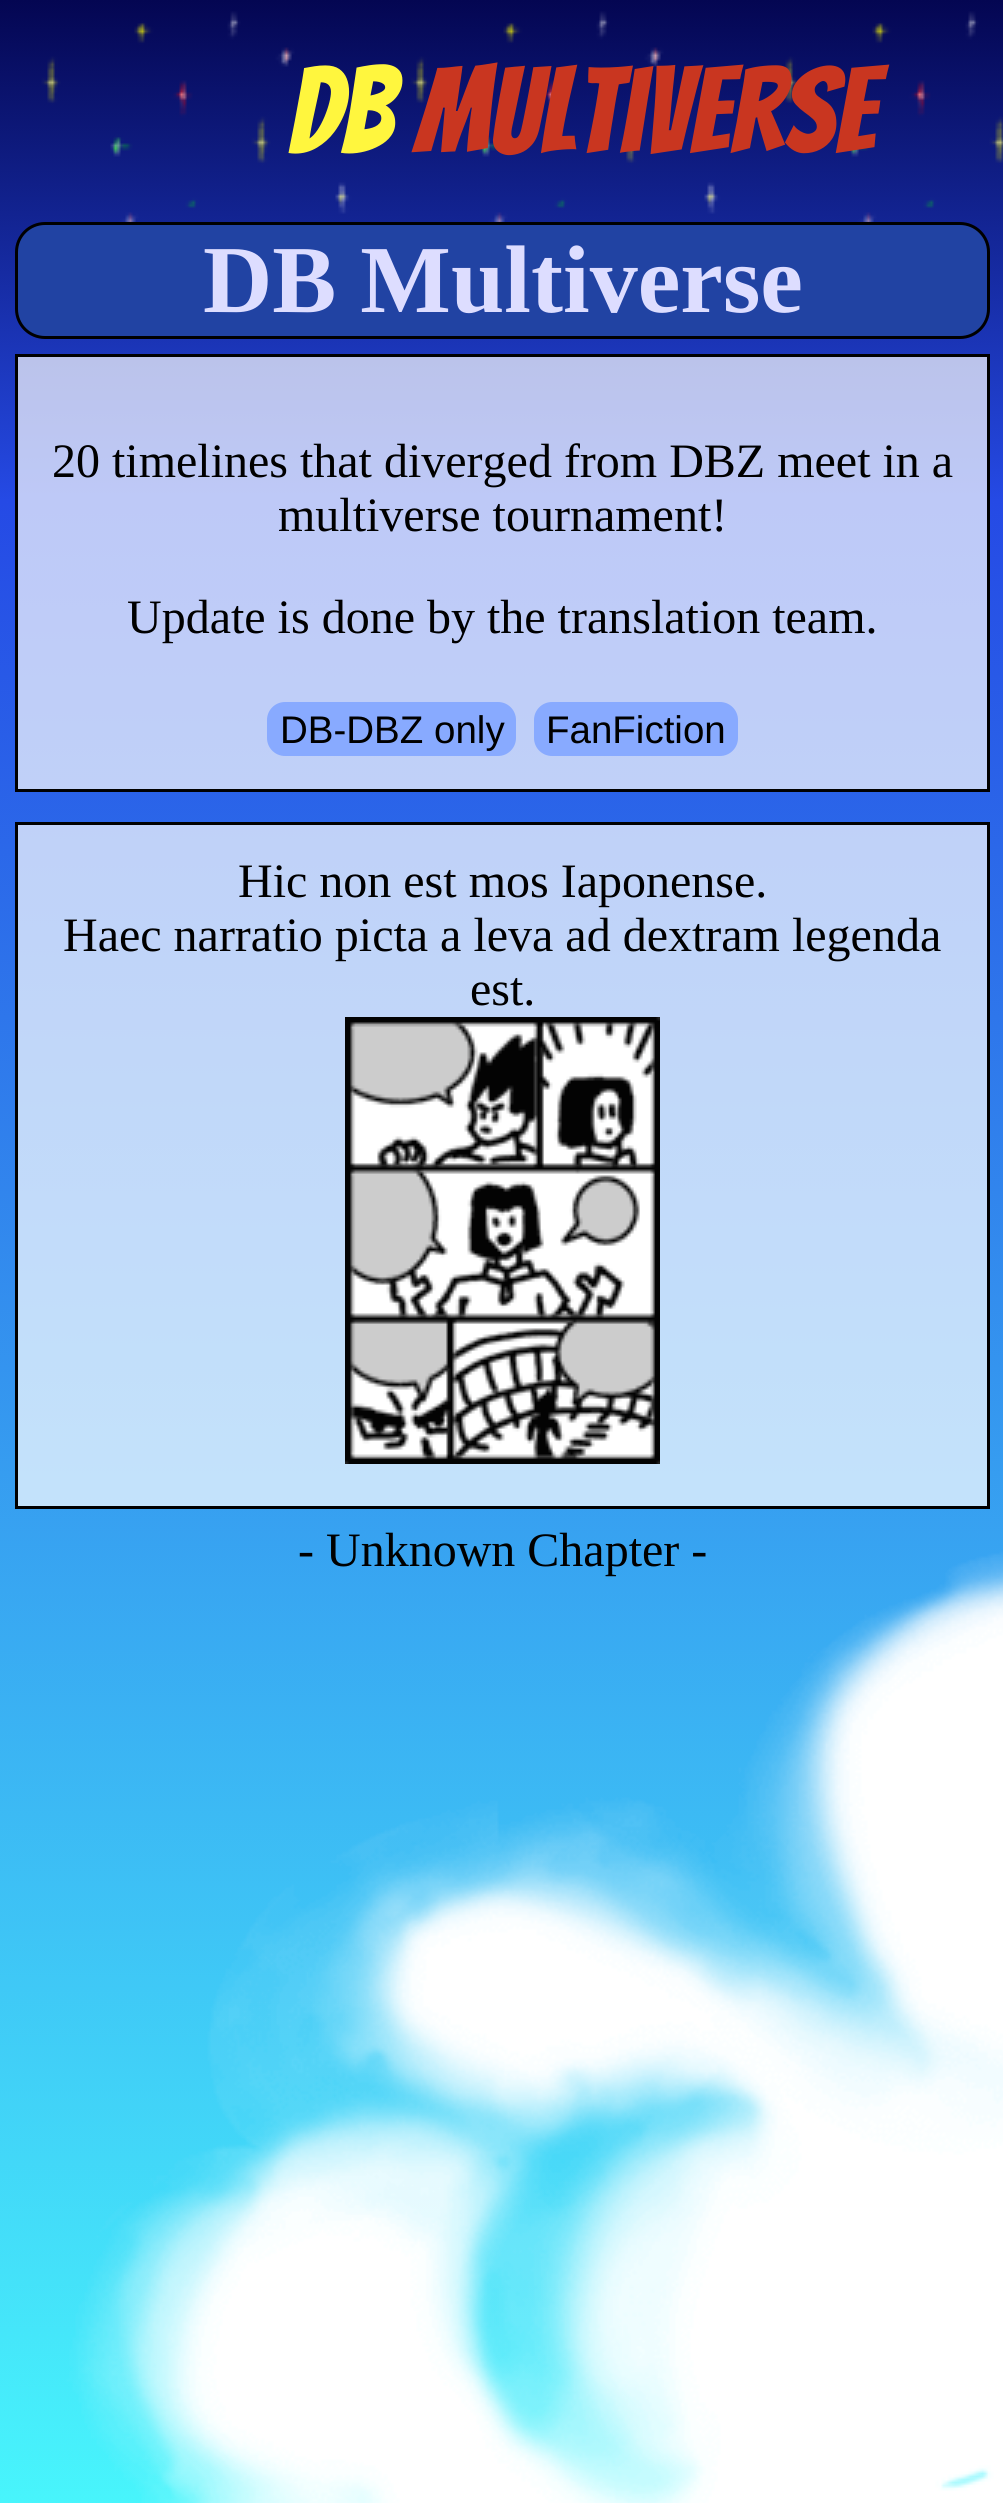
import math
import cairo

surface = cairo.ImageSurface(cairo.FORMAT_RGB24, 1003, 2503)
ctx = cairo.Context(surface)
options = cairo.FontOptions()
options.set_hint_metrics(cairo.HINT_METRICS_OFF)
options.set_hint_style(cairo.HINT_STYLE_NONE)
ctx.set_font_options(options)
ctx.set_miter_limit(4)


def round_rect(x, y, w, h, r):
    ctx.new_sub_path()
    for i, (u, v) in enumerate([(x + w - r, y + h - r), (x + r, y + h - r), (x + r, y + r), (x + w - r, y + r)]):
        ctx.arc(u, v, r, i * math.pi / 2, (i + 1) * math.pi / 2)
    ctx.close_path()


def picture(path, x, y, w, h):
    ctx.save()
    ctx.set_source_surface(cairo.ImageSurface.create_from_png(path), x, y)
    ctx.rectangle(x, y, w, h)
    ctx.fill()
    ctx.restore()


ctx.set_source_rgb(1, 1, 1)
ctx.paint()
picture("img1.png", 0, 0, 1003, 2503)
ctx.select_font_face("Bangers")
ctx.set_font_size(120)
ctx.set_source_rgb(1, 0.961, 0.243)
ctx.move_to(288, 153)
ctx.show_text("DB")
ctx.set_source_rgb(0.788, 0.212, 0.125)
ctx.move_to(415, 153)
ctx.show_text("Multiverse")
ctx.set_source_rgb(0.129, 0.263, 0.639)
round_rect(16.5, 223.5, 972, 114, 28.5)
ctx.fill_preserve()
ctx.set_source_rgb(0, 0, 0)
ctx.set_line_width(3)
ctx.stroke()
ctx.select_font_face("Liberation Serif", cairo.FONT_SLANT_NORMAL, cairo.FONT_WEIGHT_BOLD)
ctx.set_font_size(96)
ctx.set_source_rgb(0.867, 0.867, 1)
ctx.move_to(203, 312)
ctx.show_text("DB Multiverse")
ctx.set_source_rgba(1, 1, 1, 0.7)
ctx.rectangle(16.5, 355.5, 972, 435)
ctx.fill_preserve()
ctx.set_source_rgb(0, 0, 0)
ctx.stroke()
ctx.select_font_face("Liberation Serif")
ctx.set_font_size(48)
ctx.move_to(52, 477)
ctx.show_text("20 timelines that diverged from DBZ meet in a")
ctx.move_to(278, 531)
ctx.show_text("multiverse tournament!")
ctx.move_to(127, 633)
ctx.show_text("Update is done by the translation team.")
ctx.set_source_rgb(0.533, 0.667, 1)
round_rect(267, 702, 249, 54, 18)
ctx.fill()
ctx.select_font_face("Liberation Sans")
ctx.set_font_size(38.5)
ctx.set_source_rgb(0, 0, 0)
ctx.move_to(280, 743)
ctx.show_text("DB-DBZ only")
ctx.set_source_rgb(0.533, 0.667, 1)
round_rect(534, 702, 204, 54, 18)
ctx.fill()
ctx.set_source_rgb(0, 0, 0)
ctx.move_to(546, 743)
ctx.show_text("FanFiction")
ctx.set_source_rgba(1, 1, 1, 0.7)
ctx.rectangle(16.5, 823.5, 972, 684)
ctx.fill_preserve()
ctx.set_source_rgb(0, 0, 0)
ctx.stroke()
ctx.select_font_face("Liberation Serif")
ctx.set_font_size(48)
ctx.move_to(238, 897)
ctx.show_text("Hic non est mos Iaponense.")
ctx.move_to(63, 951)
ctx.show_text("Haec narratio picta a leva ad dextram legenda")
ctx.move_to(470, 1005)
ctx.show_text("est.")
picture("img2.png", 345, 1017, 315, 447)
ctx.move_to(298, 1566)
ctx.show_text("- Unknown Chapter -")
surface.write_to_png("page.png")
